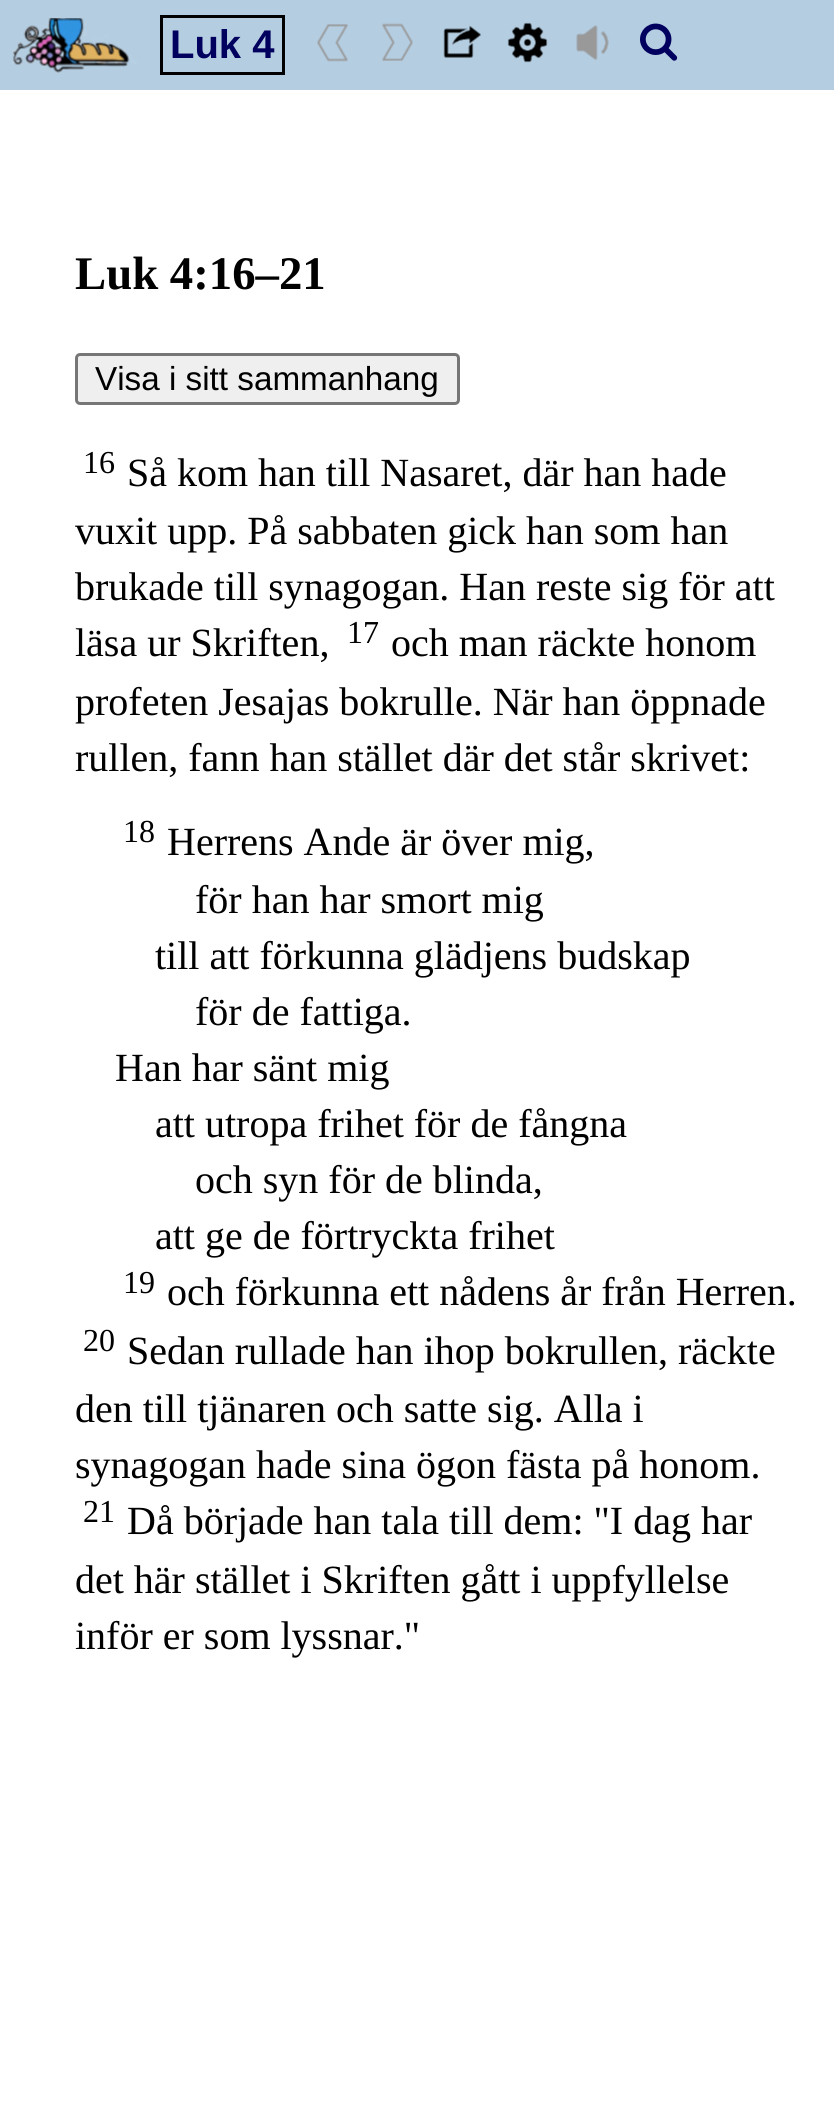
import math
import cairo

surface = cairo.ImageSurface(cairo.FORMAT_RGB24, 834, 2119)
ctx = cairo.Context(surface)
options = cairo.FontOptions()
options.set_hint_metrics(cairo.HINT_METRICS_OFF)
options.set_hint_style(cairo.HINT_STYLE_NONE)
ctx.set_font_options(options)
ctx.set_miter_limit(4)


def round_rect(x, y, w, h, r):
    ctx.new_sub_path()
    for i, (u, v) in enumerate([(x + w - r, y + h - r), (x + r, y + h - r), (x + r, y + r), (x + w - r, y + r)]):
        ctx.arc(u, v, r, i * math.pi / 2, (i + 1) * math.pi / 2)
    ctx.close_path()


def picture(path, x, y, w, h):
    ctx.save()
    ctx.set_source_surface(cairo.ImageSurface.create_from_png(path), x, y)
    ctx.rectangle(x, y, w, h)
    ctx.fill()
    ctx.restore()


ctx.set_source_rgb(1, 1, 1)
ctx.paint()
ctx.set_source_rgb(0.706, 0.804, 0.882)
ctx.rectangle(0, 0, 834, 90)
ctx.fill()
picture("img1.png", 12, 18, 125, 55)
ctx.rectangle(161.5, 16.5, 122, 57)
ctx.set_source_rgb(0, 0, 0)
ctx.set_line_width(3)
ctx.stroke()
ctx.select_font_face("Liberation Sans", cairo.FONT_SLANT_NORMAL, cairo.FONT_WEIGHT_BOLD)
ctx.set_font_size(40)
ctx.set_source_rgb(0.004, 0, 0.369)
ctx.move_to(170, 58)
ctx.show_text("Luk 4")
picture("img2.png", 317, 24, 31, 38)
picture("img3.png", 382, 23, 31, 38)
picture("img4.png", 443, 25, 38, 33)
picture("img5.png", 507, 22, 41, 41)
picture("img6.png", 576, 25, 33, 35)
picture("img7.png", 640, 23, 38, 38)
ctx.select_font_face("Liberation Serif", cairo.FONT_SLANT_NORMAL, cairo.FONT_WEIGHT_BOLD)
ctx.set_font_size(46.75)
ctx.set_source_rgb(0, 0, 0)
ctx.move_to(75, 289)
ctx.show_text("Luk 4:16–21")
ctx.set_source_rgb(0.937, 0.937, 0.937)
round_rect(76.5, 354.5, 382, 49, 3.5)
ctx.fill_preserve()
ctx.set_source_rgb(0.463, 0.463, 0.463)
ctx.stroke()
ctx.select_font_face("Liberation Sans")
ctx.set_font_size(33.25)
ctx.set_source_rgb(0, 0, 0)
ctx.move_to(95, 390)
ctx.show_text("Visa i sitt sammanhang")
ctx.select_font_face("Liberation Serif")
ctx.set_font_size(32)
ctx.move_to(83, 473)
ctx.show_text("16")
ctx.set_font_size(40)
ctx.move_to(127, 486)
ctx.show_text("Så kom han till Nasaret, där han hade")
ctx.move_to(75, 544)
ctx.show_text("vuxit upp. På sabbaten gick han som han")
ctx.move_to(75, 600)
ctx.show_text("brukade till synagogan. Han reste sig för att")
ctx.move_to(75, 656)
ctx.show_text("läsa ur Skriften,")
ctx.set_font_size(32)
ctx.move_to(347, 643)
ctx.show_text("17")
ctx.set_font_size(40)
ctx.move_to(391, 656)
ctx.show_text("och man räckte honom")
ctx.move_to(75, 715)
ctx.show_text("profeten Jesajas bokrulle. När han öppnade")
ctx.move_to(75, 771)
ctx.show_text("rullen, fann han stället där det står skrivet:")
ctx.set_font_size(32)
ctx.move_to(123, 842)
ctx.show_text("18")
ctx.set_font_size(40)
ctx.move_to(167, 855)
ctx.show_text("Herrens Ande är över mig,")
ctx.move_to(195, 913)
ctx.show_text("för han har smort mig")
ctx.move_to(155, 969)
ctx.show_text("till att förkunna glädjens budskap")
ctx.move_to(195, 1025)
ctx.show_text("för de fattiga.")
ctx.move_to(115, 1081)
ctx.show_text("Han har sänt mig")
ctx.move_to(155, 1137)
ctx.show_text("att utropa frihet för de fångna")
ctx.move_to(195, 1193)
ctx.show_text("och syn för de blinda,")
ctx.move_to(155, 1249)
ctx.show_text("att ge de förtryckta frihet")
ctx.set_font_size(32)
ctx.move_to(123, 1293)
ctx.show_text("19")
ctx.set_font_size(40)
ctx.move_to(167, 1305)
ctx.show_text("och förkunna ett nådens år från Herren.")
ctx.set_font_size(32)
ctx.move_to(83, 1351)
ctx.show_text("20")
ctx.set_font_size(40)
ctx.move_to(127, 1364)
ctx.show_text("Sedan rullade han ihop bokrullen, räckte")
ctx.move_to(75, 1422)
ctx.show_text("den till tjänaren och satte sig. Alla i")
ctx.move_to(75, 1478)
ctx.show_text("synagogan hade sina ögon fästa på honom.")
ctx.set_font_size(32)
ctx.move_to(83, 1522)
ctx.show_text("21")
ctx.set_font_size(40)
ctx.move_to(127, 1534)
ctx.show_text("Då började han tala till dem: \"I dag har")
ctx.move_to(75, 1593)
ctx.show_text("det här stället i Skriften gått i uppfyllelse")
ctx.move_to(75, 1649)
ctx.show_text("inför er som lyssnar.\"")
surface.write_to_png("page.png")
